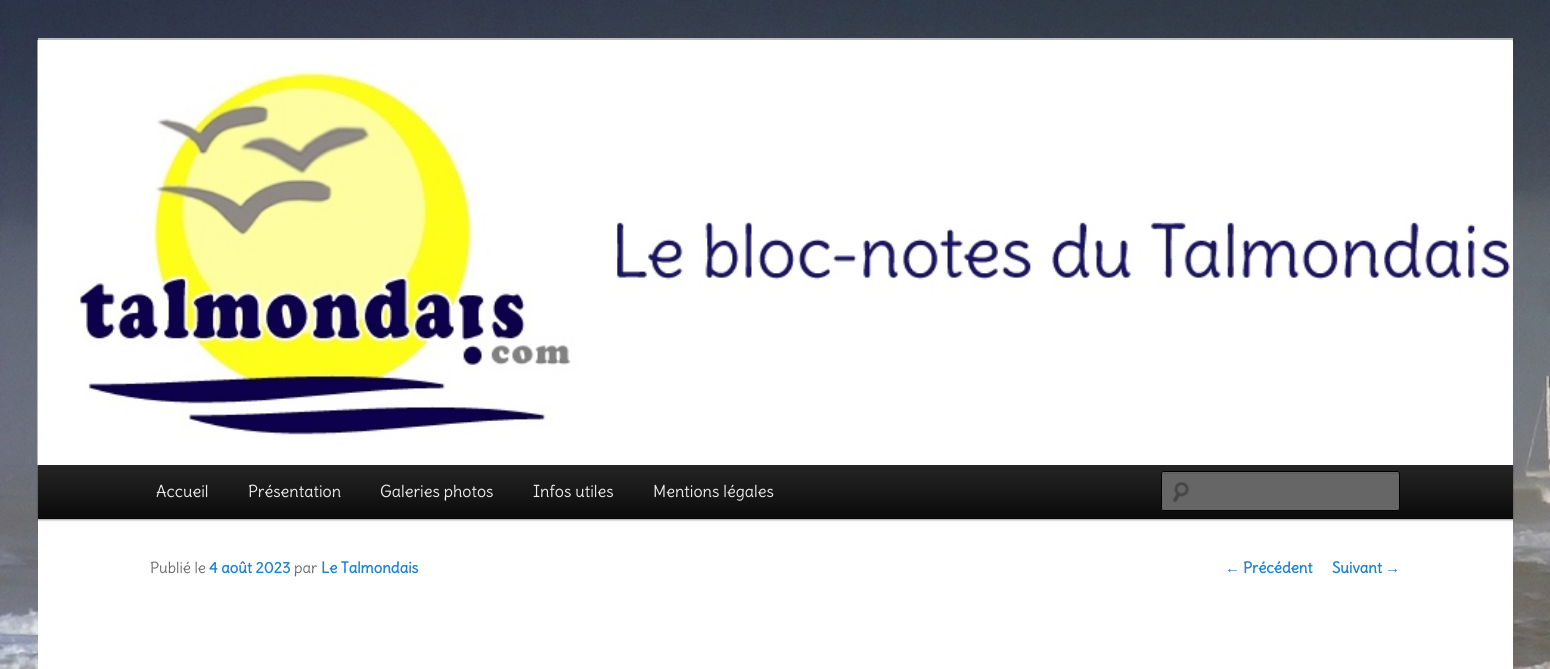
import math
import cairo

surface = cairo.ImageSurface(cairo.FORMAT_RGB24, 1550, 669)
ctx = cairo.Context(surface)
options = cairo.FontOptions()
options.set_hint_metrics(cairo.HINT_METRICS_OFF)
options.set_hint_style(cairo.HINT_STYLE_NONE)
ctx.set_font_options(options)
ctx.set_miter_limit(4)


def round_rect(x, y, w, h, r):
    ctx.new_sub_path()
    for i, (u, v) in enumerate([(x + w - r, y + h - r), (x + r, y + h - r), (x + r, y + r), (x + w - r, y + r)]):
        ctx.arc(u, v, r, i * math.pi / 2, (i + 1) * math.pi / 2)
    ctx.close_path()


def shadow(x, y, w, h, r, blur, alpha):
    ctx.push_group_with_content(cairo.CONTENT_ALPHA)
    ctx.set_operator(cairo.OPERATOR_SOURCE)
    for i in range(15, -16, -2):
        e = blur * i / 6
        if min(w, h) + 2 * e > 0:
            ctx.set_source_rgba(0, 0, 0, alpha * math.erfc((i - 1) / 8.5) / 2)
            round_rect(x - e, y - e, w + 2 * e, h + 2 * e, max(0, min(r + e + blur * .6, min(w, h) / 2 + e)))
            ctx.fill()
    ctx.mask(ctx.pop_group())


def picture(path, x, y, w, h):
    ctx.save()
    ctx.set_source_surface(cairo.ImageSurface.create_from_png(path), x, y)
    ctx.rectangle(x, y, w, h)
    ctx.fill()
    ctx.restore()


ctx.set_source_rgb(1, 1, 1)
ctx.paint()
picture("img1.png", 0, 0, 1550, 669)
ctx.set_source_rgb(1, 1, 1)
ctx.rectangle(38, 41, 1475, 628)
ctx.fill()
ctx.set_source_rgb(0.733, 0.733, 0.733)
ctx.rectangle(38, 38, 1475, 3)
ctx.fill()
ctx.set_source_rgb(0, 0, 0)
shadow(38, 466, 1475, 54, 0, 1, 0.4)
picture("img2.png", 37, 40, 1476, 425)
gradient = cairo.LinearGradient(775, 465, 775, 519)
gradient.add_color_stop_rgba(0, 0.145, 0.145, 0.145, 1)
gradient.add_color_stop_rgba(1, 0.039, 0.039, 0.039, 1)
ctx.set_source(gradient)
ctx.rectangle(38, 465, 1475, 54)
ctx.fill()
ctx.select_font_face("Delius")
ctx.set_font_size(16.25)
ctx.set_source_rgb(0.933, 0.933, 0.933)
ctx.move_to(156, 497)
ctx.show_text("Accueil")
ctx.move_to(248, 497)
ctx.show_text("Présentation")
ctx.move_to(380, 497)
ctx.show_text("Galeries photos")
ctx.move_to(533, 497)
ctx.show_text("Infos utiles")
ctx.move_to(653, 497)
ctx.show_text("Mentions légales")
ctx.set_source_rgb(0.4, 0.4, 0.4)
round_rect(1161, 471, 239, 40, 2.5)
ctx.fill()
picture("img3.png", 1172, 482, 17, 21)
ctx.set_source_rgb(0.361, 0.361, 0.361)
ctx.new_path()
ctx.move_to(1164, 474)
ctx.line_to(1398, 474)
ctx.line_to(1399, 475)
ctx.line_to(1399, 473)
ctx.line_to(1164, 473)
ctx.line_to(1163, 474)
ctx.close_path()
ctx.fill()
round_rect(1161.5, 471.5, 238, 39, 2)
ctx.set_source_rgb(0, 0, 0)
ctx.set_line_width(1)
ctx.stroke()
ctx.set_font_size(15)
ctx.set_source_rgb(0.4, 0.4, 0.4)
ctx.move_to(150, 573)
ctx.show_text("Publié le")
ctx.select_font_face("Delius", cairo.FONT_SLANT_NORMAL, cairo.FONT_WEIGHT_BOLD)
ctx.set_source_rgb(0.098, 0.51, 0.82)
ctx.move_to(209, 573)
ctx.show_text("4 août 2023")
ctx.select_font_face("Delius")
ctx.set_source_rgb(0.4, 0.4, 0.4)
ctx.move_to(294, 573)
ctx.show_text("par")
ctx.select_font_face("Delius", cairo.FONT_SLANT_NORMAL, cairo.FONT_WEIGHT_BOLD)
ctx.set_source_rgb(0.098, 0.51, 0.82)
ctx.move_to(321, 573)
ctx.show_text("Le Talmondais")
ctx.select_font_face("Liberation Sans")
ctx.move_to(1225, 573)
ctx.show_text("←")
ctx.select_font_face("Delius", cairo.FONT_SLANT_NORMAL, cairo.FONT_WEIGHT_BOLD)
ctx.move_to(1243, 573)
ctx.show_text("Précédent")
ctx.move_to(1332, 573)
ctx.show_text("Suivant")
ctx.select_font_face("Liberation Sans")
ctx.move_to(1385, 573)
ctx.show_text("→")
surface.write_to_png("page.png")
